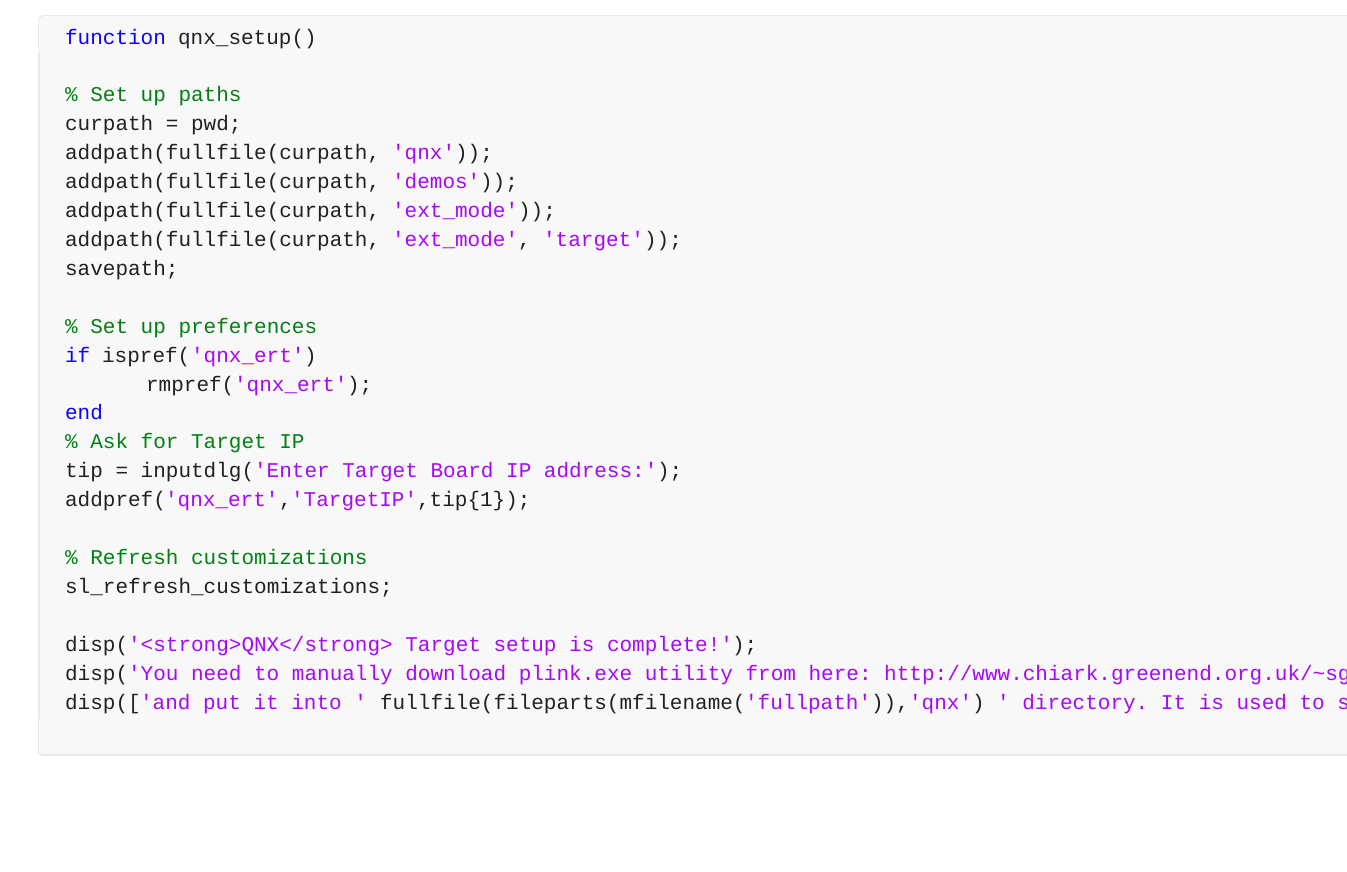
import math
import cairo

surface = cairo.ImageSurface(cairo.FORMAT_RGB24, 1347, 872)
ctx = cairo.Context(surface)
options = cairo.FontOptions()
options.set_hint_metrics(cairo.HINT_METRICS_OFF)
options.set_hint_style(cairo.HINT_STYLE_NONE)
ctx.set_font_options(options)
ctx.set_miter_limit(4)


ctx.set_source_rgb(1, 1, 1)
ctx.paint()
ctx.set_source_rgb(0.969, 0.969, 0.969)
ctx.new_path()
ctx.move_to(44, 15)
ctx.line_to(1347, 15)
ctx.line_to(1347, 756)
ctx.line_to(44, 756)
ctx.curve_to(40.5, 756, 38, 753.5, 38, 750)
ctx.line_to(38, 21)
ctx.curve_to(38, 17.5, 40.5, 15, 44, 15)
ctx.close_path()
ctx.fill()
ctx.set_source_rgb(0.914, 0.914, 0.914)
ctx.set_fill_rule(cairo.FILL_RULE_EVEN_ODD)
ctx.new_path()
ctx.move_to(44, 15)
ctx.line_to(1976, 15)
ctx.curve_to(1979, 15, 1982, 18, 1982, 21)
ctx.line_to(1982, 52)
ctx.line_to(38, 52)
ctx.line_to(38, 21)
ctx.curve_to(38, 18, 40, 15, 44, 15)
ctx.close_path()
ctx.move_to(44, 16)
ctx.line_to(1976, 16)
ctx.curve_to(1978, 16, 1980, 19, 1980, 21)
ctx.line_to(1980, 52)
ctx.line_to(39, 52)
ctx.line_to(39, 21)
ctx.curve_to(39, 19, 41, 16, 44, 16)
ctx.close_path()
ctx.fill()
ctx.select_font_face("Liberation Mono")
ctx.set_font_size(21)
ctx.set_source_rgb(0.055, 0, 1)
ctx.move_to(65, 44)
ctx.show_text("function")
ctx.set_source_rgb(0.129, 0.129, 0.129)
ctx.move_to(178, 44)
ctx.show_text("qnx_setup()")
ctx.set_source_rgb(0.914, 0.914, 0.914)
ctx.rectangle(38, 53, 2, 666)
ctx.fill()
ctx.set_source_rgb(0, 0.502, 0.075)
ctx.move_to(65, 101)
ctx.show_text("% Set up paths")
ctx.set_source_rgb(0.129, 0.129, 0.129)
ctx.move_to(65, 130)
ctx.show_text("curpath = pwd;")
ctx.move_to(65, 159)
ctx.show_text("addpath(fullfile(curpath,")
ctx.set_source_rgb(0.655, 0.035, 0.961)
ctx.move_to(392, 159)
ctx.show_text("'qnx'")
ctx.set_source_rgb(0.129, 0.129, 0.129)
ctx.move_to(455, 159)
ctx.show_text("));")
ctx.move_to(65, 188)
ctx.show_text("addpath(fullfile(curpath,")
ctx.set_source_rgb(0.655, 0.035, 0.961)
ctx.move_to(392, 188)
ctx.show_text("'demos'")
ctx.set_source_rgb(0.129, 0.129, 0.129)
ctx.move_to(480, 188)
ctx.show_text("));")
ctx.move_to(65, 217)
ctx.show_text("addpath(fullfile(curpath,")
ctx.set_source_rgb(0.655, 0.035, 0.961)
ctx.move_to(392, 217)
ctx.show_text("'ext_mode'")
ctx.set_source_rgb(0.129, 0.129, 0.129)
ctx.move_to(518, 217)
ctx.show_text("));")
ctx.move_to(65, 246)
ctx.show_text("addpath(fullfile(curpath,")
ctx.set_source_rgb(0.655, 0.035, 0.961)
ctx.move_to(392, 246)
ctx.show_text("'ext_mode'")
ctx.set_source_rgb(0.129, 0.129, 0.129)
ctx.move_to(518, 246)
ctx.show_text(",")
ctx.set_source_rgb(0.655, 0.035, 0.961)
ctx.move_to(543, 246)
ctx.show_text("'target'")
ctx.set_source_rgb(0.129, 0.129, 0.129)
ctx.move_to(644, 246)
ctx.show_text("));")
ctx.move_to(65, 275)
ctx.show_text("savepath;")
ctx.set_source_rgb(0, 0.502, 0.075)
ctx.move_to(65, 333)
ctx.show_text("% Set up preferences")
ctx.set_source_rgb(0.055, 0, 1)
ctx.move_to(65, 362)
ctx.show_text("if")
ctx.set_source_rgb(0.129, 0.129, 0.129)
ctx.move_to(102, 362)
ctx.show_text("ispref(")
ctx.set_source_rgb(0.655, 0.035, 0.961)
ctx.move_to(191, 362)
ctx.show_text("'qnx_ert'")
ctx.set_source_rgb(0.129, 0.129, 0.129)
ctx.move_to(304, 362)
ctx.show_text(")")
ctx.move_to(146, 391)
ctx.show_text("rmpref(")
ctx.set_source_rgb(0.655, 0.035, 0.961)
ctx.move_to(234, 391)
ctx.show_text("'qnx_ert'")
ctx.set_source_rgb(0.129, 0.129, 0.129)
ctx.move_to(347, 391)
ctx.show_text(");")
ctx.set_source_rgb(0.055, 0, 1)
ctx.move_to(65, 419)
ctx.show_text("end")
ctx.set_source_rgb(0, 0.502, 0.075)
ctx.move_to(65, 448)
ctx.show_text("% Ask for Target IP")
ctx.set_source_rgb(0.129, 0.129, 0.129)
ctx.move_to(65, 477)
ctx.show_text("tip = inputdlg(")
ctx.set_source_rgb(0.655, 0.035, 0.961)
ctx.move_to(254, 477)
ctx.show_text("'Enter Target Board IP address:'")
ctx.set_source_rgb(0.129, 0.129, 0.129)
ctx.move_to(657, 477)
ctx.show_text(");")
ctx.move_to(65, 506)
ctx.show_text("addpref(")
ctx.set_source_rgb(0.655, 0.035, 0.961)
ctx.move_to(165, 506)
ctx.show_text("'qnx_ert' 'TargetIP'")
ctx.set_source_rgb(0.129, 0.129, 0.129)
ctx.move_to(417, 506)
ctx.show_text(",tip{1});")
ctx.move_to(279, 506)
ctx.show_text(",")
ctx.set_source_rgb(0, 0.502, 0.075)
ctx.move_to(65, 564)
ctx.show_text("% Refresh customizations")
ctx.set_source_rgb(0.129, 0.129, 0.129)
ctx.move_to(65, 593)
ctx.show_text("sl_refresh_customizations;")
ctx.move_to(65, 651)
ctx.show_text("disp(")
ctx.set_source_rgb(0.655, 0.035, 0.961)
ctx.move_to(128, 651)
ctx.show_text("'<strong>QNX</strong> Target setup is complete!'")
ctx.set_source_rgb(0.129, 0.129, 0.129)
ctx.move_to(732, 651)
ctx.show_text(");")
ctx.move_to(65, 680)
ctx.show_text("disp(")
ctx.set_source_rgb(0.655, 0.035, 0.961)
ctx.move_to(128, 680)
ctx.show_text("'You need to manually download plink.exe utility from here: http://www.chiark.greenend.org.uk/~sg")
ctx.set_source_rgb(0.129, 0.129, 0.129)
ctx.move_to(65, 709)
ctx.show_text("disp([")
ctx.set_source_rgb(0.655, 0.035, 0.961)
ctx.move_to(140, 709)
ctx.show_text("'and put it into '")
ctx.set_source_rgb(0.129, 0.129, 0.129)
ctx.move_to(380, 709)
ctx.show_text("fullfile(fileparts(mfilename(")
ctx.set_source_rgb(0.655, 0.035, 0.961)
ctx.move_to(745, 709)
ctx.show_text("'fullpath'")
ctx.set_source_rgb(0.129, 0.129, 0.129)
ctx.move_to(871, 709)
ctx.show_text(")),")
ctx.set_source_rgb(0.655, 0.035, 0.961)
ctx.move_to(909, 709)
ctx.show_text("'qnx'")
ctx.set_source_rgb(0.129, 0.129, 0.129)
ctx.move_to(972, 709)
ctx.show_text(")")
ctx.set_source_rgb(0.655, 0.035, 0.961)
ctx.move_to(997, 709)
ctx.show_text("' directory. It is used to s")
ctx.set_source_rgb(0.914, 0.914, 0.914)
ctx.new_path()
ctx.move_to(38, 718)
ctx.line_to(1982, 718)
ctx.line_to(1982, 750)
ctx.curve_to(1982, 753, 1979, 756, 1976, 756)
ctx.line_to(44, 756)
ctx.curve_to(40, 756, 38, 753, 38, 750)
ctx.close_path()
ctx.move_to(39, 718)
ctx.line_to(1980, 718)
ctx.line_to(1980, 750)
ctx.curve_to(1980, 752, 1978, 754, 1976, 754)
ctx.line_to(44, 754)
ctx.curve_to(41, 754, 39, 752, 39, 750)
ctx.close_path()
ctx.fill()
surface.write_to_png("page.png")
